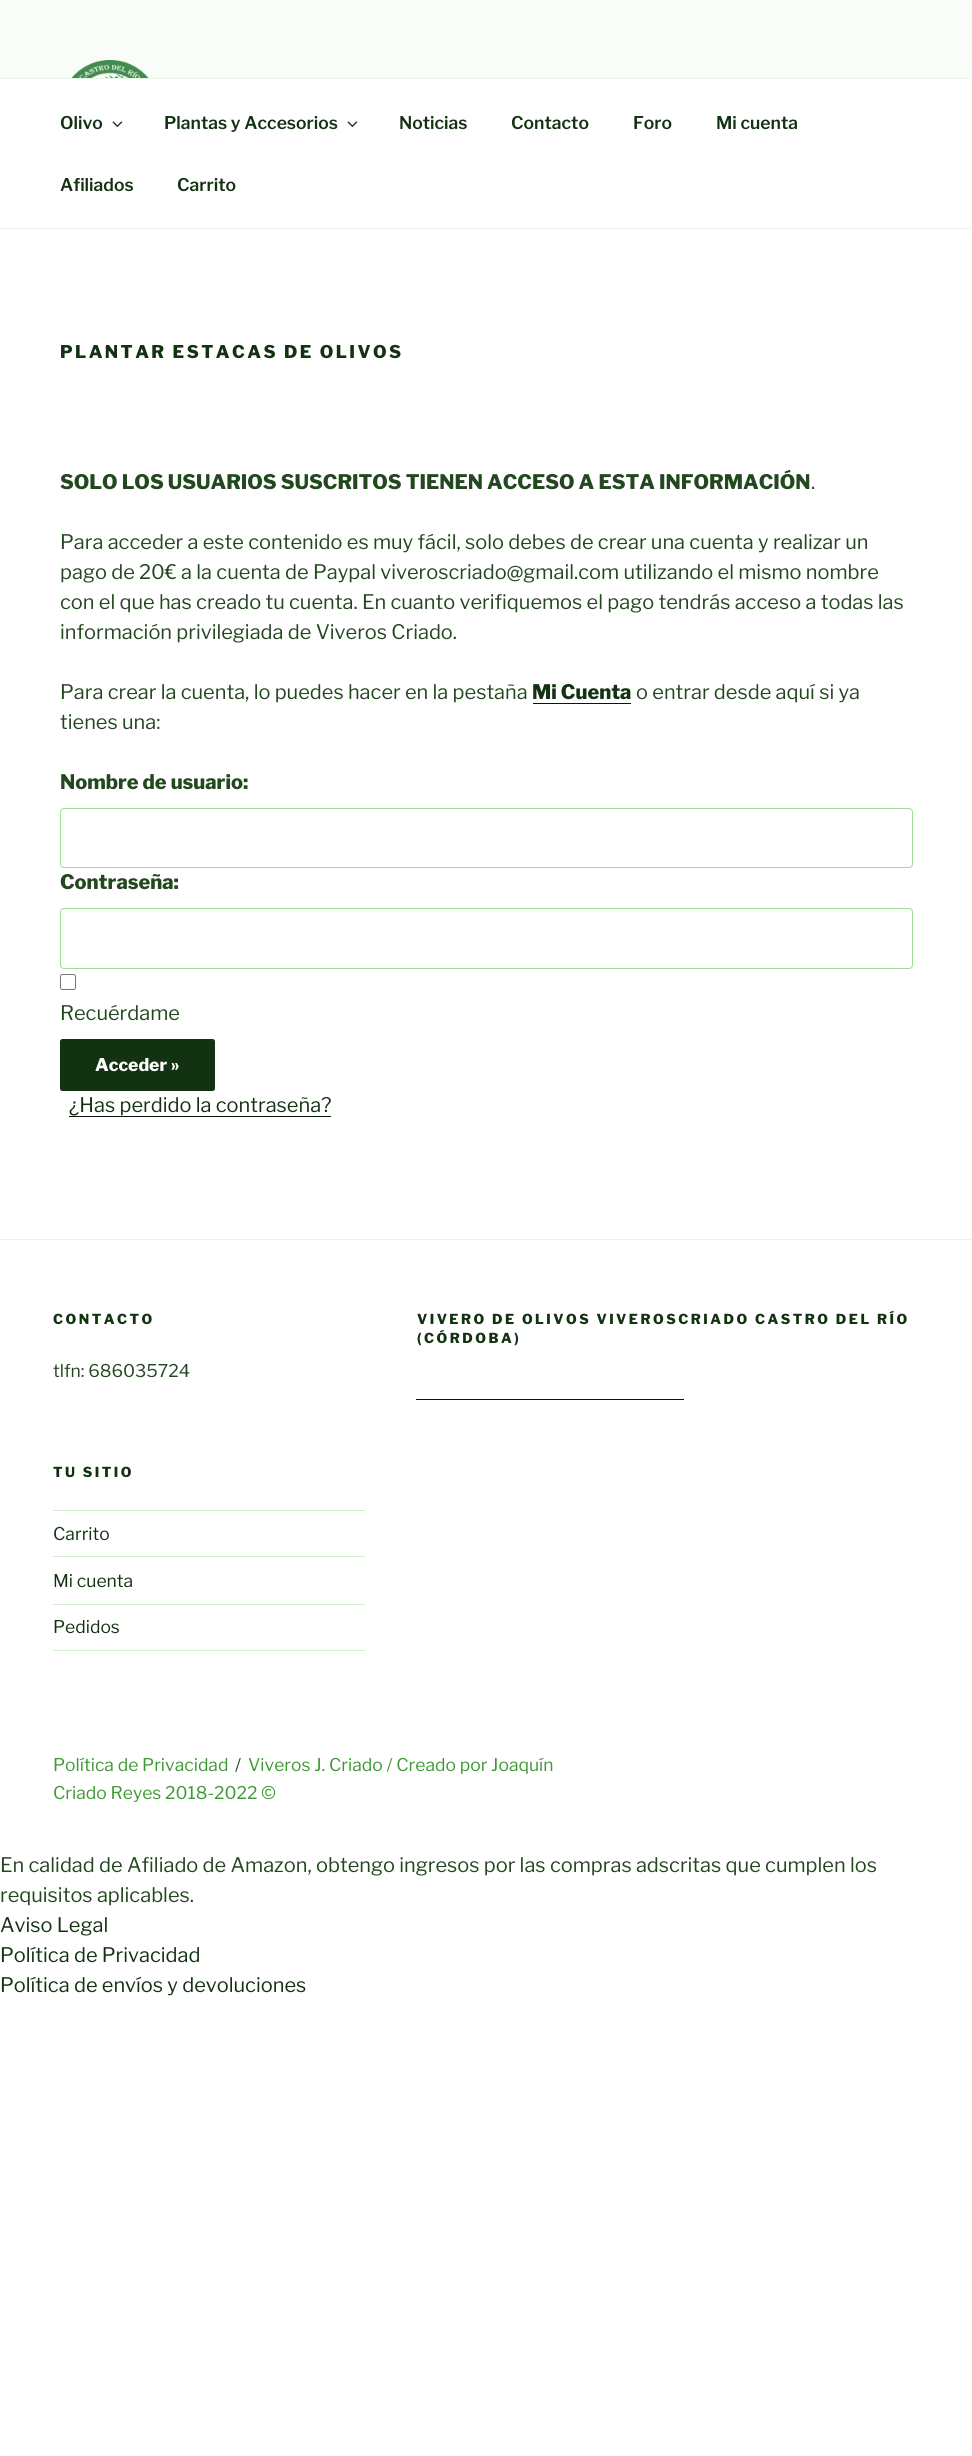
import math
import cairo

surface = cairo.ImageSurface(cairo.FORMAT_RGB24, 972, 2456)
ctx = cairo.Context(surface)
options = cairo.FontOptions()
options.set_hint_metrics(cairo.HINT_METRICS_OFF)
options.set_hint_style(cairo.HINT_STYLE_NONE)
ctx.set_font_options(options)
ctx.set_miter_limit(4)


def spaced_text(x, y, s, letter, word):
    ctx.move_to(x, y)
    for ch in s:
        ctx.show_text(ch)
        ctx.rel_move_to(letter + word * (ch == ' '), 0)


def round_rect(x, y, w, h, r):
    ctx.new_sub_path()
    for i, (u, v) in enumerate([(x + w - r, y + h - r), (x + r, y + h - r), (x + r, y + r), (x + w - r, y + r)]):
        ctx.arc(u, v, r, i * math.pi / 2, (i + 1) * math.pi / 2)
    ctx.close_path()


def picture(path, x, y, w, h):
    ctx.save()
    ctx.set_source_surface(cairo.ImageSurface.create_from_png(path), x, y)
    ctx.rectangle(x, y, w, h)
    ctx.fill()
    ctx.restore()


ctx.set_source_rgb(1, 1, 1)
ctx.paint()
ctx.set_source_rgb(0.973, 0.988, 0.969)
ctx.rectangle(0, 0, 972, 78)
ctx.fill()
picture("img1.png", 71, 60, 78, 18)
ctx.set_source_rgb(0.902, 0.965, 0.894)
ctx.rectangle(0, 78, 972, 1)
ctx.fill()
ctx.rectangle(0, 228, 972, 1)
ctx.fill()
ctx.select_font_face("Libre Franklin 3 Thin")
ctx.set_font_size(17.5)
ctx.set_source_rgb(0.078, 0.196, 0.067)
ctx.move_to(60, 129)
ctx.show_text("Olivo")
picture("img2.png", 112, 121, 11, 6)
ctx.move_to(164, 129)
ctx.show_text("Plantas y Accesorios")
picture("img2.png", 347, 121, 11, 6)
ctx.move_to(399, 129)
ctx.show_text("Noticias")
ctx.move_to(511, 129)
ctx.show_text("Contacto")
ctx.move_to(633, 129)
ctx.show_text("Foro")
ctx.move_to(716, 129)
ctx.show_text("Mi cuenta")
ctx.move_to(60, 191)
ctx.show_text("Afiliados")
ctx.move_to(177, 191)
ctx.show_text("Carrito")
ctx.select_font_face("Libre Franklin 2 Thin")
spaced_text(60, 358, "PLANTAR ESTACAS DE OLIVOS", 2.45, 0)
ctx.set_font_size(20)
ctx.set_source_rgb(0.137, 0.278, 0.122)
ctx.move_to(60, 489)
ctx.show_text("SOLO LOS USUARIOS SUSCRITOS TIENEN ACCESO A ESTA INFORMACIÓN")
ctx.select_font_face("Libre Franklin Thin")
ctx.move_to(811, 489)
ctx.show_text(".")
ctx.move_to(60, 549)
ctx.show_text("Para acceder a este contenido es muy fácil, solo debes de crear una cuenta y realizar un")
ctx.move_to(60, 579)
ctx.show_text("pago de 20€ a la cuenta de Paypal viveroscriado@gmail.com utilizando el mismo nombre")
ctx.move_to(60, 609)
ctx.show_text("con el que has creado tu cuenta. En cuanto verifiquemos el pago tendrás acceso a todas las")
ctx.move_to(60, 639)
ctx.show_text("información privilegiada de Viveros Criado.")
ctx.move_to(60, 699)
ctx.show_text("Para crear la cuenta, lo puedes hacer en la pestaña")
ctx.select_font_face("Libre Franklin 2 Thin")
ctx.set_source_rgb(0.078, 0.196, 0.067)
ctx.move_to(532, 699)
ctx.show_text("Mi Cuenta")
ctx.set_source_rgb(0.035, 0.09, 0.031)
ctx.rectangle(533, 703, 98, 1)
ctx.fill()
ctx.select_font_face("Libre Franklin Thin")
ctx.set_source_rgb(0.137, 0.278, 0.122)
ctx.move_to(636, 699)
ctx.show_text("o entrar desde aquí si ya")
ctx.move_to(60, 729)
ctx.show_text("tienes una:")
ctx.select_font_face("Libre Franklin 2 Thin")
ctx.move_to(60, 789)
ctx.show_text("Nombre de usuario:")
round_rect(60.5, 808.5, 852, 59, 3.5)
ctx.set_source_rgb(0.624, 0.867, 0.596)
ctx.set_line_width(1)
ctx.stroke()
ctx.set_source_rgb(0.137, 0.278, 0.122)
ctx.move_to(60, 889)
ctx.show_text("Contraseña:")
round_rect(60.5, 908.5, 852, 60, 3.5)
ctx.set_source_rgb(0.624, 0.867, 0.596)
ctx.stroke()
round_rect(60.5, 974.5, 15, 15, 2)
ctx.set_source_rgb(0.463, 0.463, 0.463)
ctx.stroke()
ctx.select_font_face("Libre Franklin Thin")
ctx.set_source_rgb(0.137, 0.278, 0.122)
ctx.move_to(60, 1020)
ctx.show_text("Recuérdame")
ctx.set_source_rgb(0.078, 0.196, 0.067)
round_rect(60, 1039, 155, 52, 2.5)
ctx.fill()
ctx.select_font_face("Libre Franklin 2 Thin")
ctx.set_font_size(17.5)
ctx.set_source_rgb(1, 1, 1)
ctx.move_to(95, 1071)
ctx.show_text("Acceder »")
ctx.select_font_face("Libre Franklin Thin")
ctx.set_font_size(20)
ctx.set_source_rgb(0.078, 0.196, 0.067)
ctx.move_to(69, 1112)
ctx.show_text("¿Has perdido la contraseña?")
ctx.set_source_rgb(0.035, 0.09, 0.031)
ctx.rectangle(69, 1116, 262, 1)
ctx.fill()
ctx.set_source_rgb(0.902, 0.965, 0.894)
ctx.rectangle(0, 1239, 972, 1)
ctx.fill()
ctx.select_font_face("Libre Franklin 2 Thin")
ctx.set_font_size(13.75)
ctx.set_source_rgb(0.078, 0.196, 0.067)
spaced_text(53, 1324, "CONTACTO", 2.5, 0)
ctx.select_font_face("Libre Franklin Thin")
ctx.set_font_size(17.5)
ctx.set_source_rgb(0.137, 0.278, 0.122)
ctx.move_to(53, 1377)
ctx.show_text("tlfn: 686035724")
ctx.select_font_face("Libre Franklin 2 Thin")
ctx.set_font_size(13.75)
ctx.set_source_rgb(0.078, 0.196, 0.067)
spaced_text(53, 1477, "TU SITIO", 2.5, 0)
ctx.set_source_rgb(0.82, 0.933, 0.804)
ctx.rectangle(53, 1510, 312, 1)
ctx.fill()
ctx.rectangle(53, 1556, 312, 1)
ctx.fill()
ctx.select_font_face("Libre Franklin Thin")
ctx.set_font_size(17.5)
ctx.set_source_rgb(0.078, 0.196, 0.067)
ctx.move_to(53, 1540)
ctx.show_text("Carrito")
ctx.set_source_rgb(0.82, 0.933, 0.804)
ctx.rectangle(53, 1604, 312, 1)
ctx.fill()
ctx.set_source_rgb(0.078, 0.196, 0.067)
ctx.move_to(53, 1587)
ctx.show_text("Mi cuenta")
ctx.set_source_rgb(0.82, 0.933, 0.804)
ctx.rectangle(53, 1650, 312, 1)
ctx.fill()
ctx.set_source_rgb(0.078, 0.196, 0.067)
ctx.move_to(53, 1633)
ctx.show_text("Pedidos")
ctx.select_font_face("Libre Franklin 2 Thin")
ctx.set_font_size(13.75)
spaced_text(417, 1324, "VIVERO DE OLIVOS VIVEROSCRIADO CASTRO DEL RÍO", 2.5, 0)
spaced_text(417, 1343, "(CÓRDOBA)", 2.5, 0)
ctx.set_source_rgb(0.035, 0.09, 0.031)
ctx.rectangle(416, 1399, 268, 1)
ctx.fill()
ctx.select_font_face("Libre Franklin Thin")
ctx.set_font_size(17.5)
ctx.set_source_rgb(0.239, 0.6, 0.2)
ctx.move_to(53, 1771)
ctx.show_text("Política de Privacidad")
ctx.set_source_rgb(0.137, 0.278, 0.122)
ctx.move_to(235, 1771)
ctx.show_text("/")
ctx.set_source_rgb(0.239, 0.6, 0.2)
ctx.move_to(248, 1771)
ctx.show_text("Viveros J. Criado / Creado por Joaquín")
ctx.move_to(53, 1799)
ctx.show_text("Criado Reyes 2018-2022 ©")
ctx.set_font_size(20)
ctx.set_source_rgb(0.137, 0.278, 0.122)
ctx.move_to(0, 1872)
ctx.show_text("En calidad de Afiliado de Amazon, obtengo ingresos por las compras adscritas que cumplen los")
ctx.move_to(0, 1902)
ctx.show_text("requisitos aplicables.")
ctx.set_source_rgb(0.078, 0.196, 0.067)
ctx.move_to(0, 1932)
ctx.show_text("Aviso Legal")
ctx.move_to(0, 1962)
ctx.show_text("Política de Privacidad")
ctx.move_to(0, 1992)
ctx.show_text("Política de envíos y devoluciones")
surface.write_to_png("page.png")
